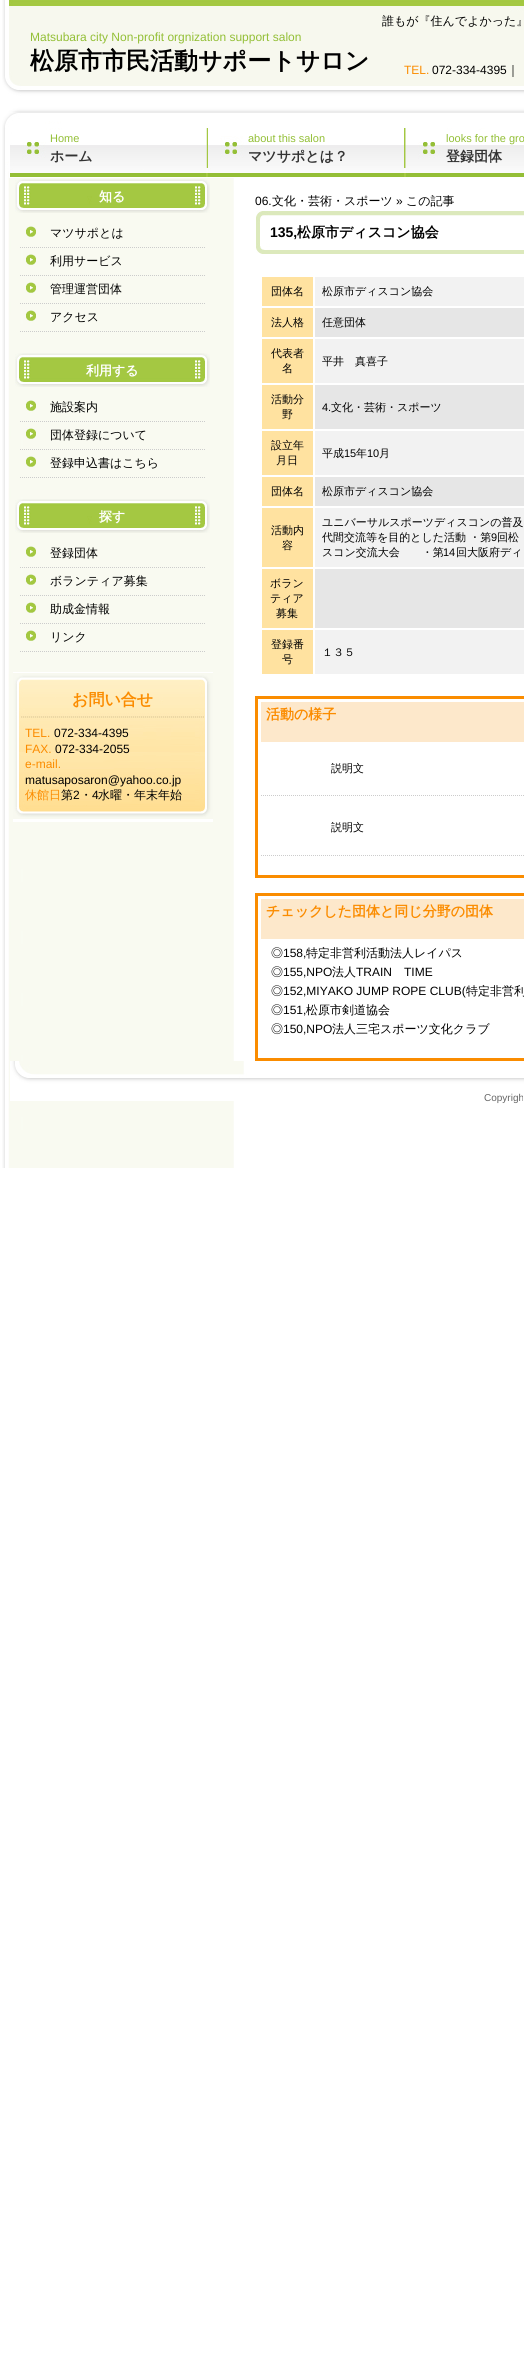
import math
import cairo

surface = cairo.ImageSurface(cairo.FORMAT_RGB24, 524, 2353)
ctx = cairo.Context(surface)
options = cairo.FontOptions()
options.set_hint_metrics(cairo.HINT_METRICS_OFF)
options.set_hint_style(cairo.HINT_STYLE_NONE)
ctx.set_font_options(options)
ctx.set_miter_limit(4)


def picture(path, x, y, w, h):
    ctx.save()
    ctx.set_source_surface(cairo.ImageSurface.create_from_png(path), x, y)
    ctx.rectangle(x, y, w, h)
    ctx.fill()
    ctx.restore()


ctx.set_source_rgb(1, 1, 1)
ctx.paint()
picture("img1.png", 2, 0, 522, 112)
ctx.select_font_face("WenQuanYi Zen Hei Medium")
ctx.set_font_size(12)
ctx.set_source_rgb(0, 0, 0)
ctx.move_to(382, 25)
ctx.show_text("誰もが『住んでよかった』")
ctx.select_font_face("Liberation Sans")
ctx.set_source_rgb(0.576, 0.749, 0.212)
ctx.move_to(30, 41)
ctx.show_text("Matsubara city Non-profit orgnization support salon")
ctx.select_font_face("WenQuanYi Zen Hei", cairo.FONT_SLANT_NORMAL, cairo.FONT_WEIGHT_BOLD)
ctx.set_font_size(24)
ctx.set_source_rgb(0, 0, 0)
ctx.move_to(30, 69)
ctx.show_text("松原市市民活動サポートサロン")
ctx.select_font_face("Liberation Sans")
ctx.set_font_size(12)
ctx.set_source_rgb(0.984, 0.549, 0)
ctx.move_to(404, 74)
ctx.show_text("TEL.")
ctx.set_source_rgb(0, 0, 0)
ctx.move_to(432, 74)
ctx.show_text("072-334-4395")
ctx.select_font_face("WenQuanYi Zen Hei Medium")
ctx.move_to(507, 74)
ctx.show_text("｜")
picture("img2.png", 2, 112, 522, 66)
picture("img3.png", 10, 128, 514, 49)
picture("img4.png", 10, 142, 196, 35)
ctx.select_font_face("Liberation Sans")
ctx.set_font_size(11)
ctx.set_source_rgb(0.576, 0.749, 0.212)
ctx.move_to(50, 142)
ctx.show_text("Home")
ctx.select_font_face("WenQuanYi Zen Hei", cairo.FONT_SLANT_NORMAL, cairo.FONT_WEIGHT_BOLD)
ctx.set_font_size(14)
ctx.set_source_rgb(0.2, 0.2, 0.2)
ctx.move_to(50, 161)
ctx.show_text("ホーム")
picture("img5.png", 208, 128, 196, 49)
ctx.select_font_face("Liberation Sans")
ctx.set_font_size(11)
ctx.set_source_rgb(0.576, 0.749, 0.212)
ctx.move_to(248, 142)
ctx.show_text("about this salon")
ctx.select_font_face("WenQuanYi Zen Hei", cairo.FONT_SLANT_NORMAL, cairo.FONT_WEIGHT_BOLD)
ctx.set_font_size(14)
ctx.set_source_rgb(0.2, 0.2, 0.2)
ctx.move_to(248, 161)
ctx.show_text("マツサポとは？")
picture("img6.png", 406, 142, 118, 35)
ctx.select_font_face("Liberation Sans")
ctx.set_font_size(11)
ctx.set_source_rgb(0.576, 0.749, 0.212)
ctx.move_to(446, 142)
ctx.show_text("looks for the gro")
ctx.select_font_face("WenQuanYi Zen Hei", cairo.FONT_SLANT_NORMAL, cairo.FONT_WEIGHT_BOLD)
ctx.set_font_size(14)
ctx.set_source_rgb(0.2, 0.2, 0.2)
ctx.move_to(446, 161)
ctx.show_text("登録団体")
picture("img10.png", 2, 178, 232, 990)
picture("img7.png", 15, 179, 195, 34)
ctx.set_font_size(13)
ctx.set_source_rgb(1, 1, 1)
ctx.move_to(99, 201)
ctx.show_text("知る")
picture("img8.png", 26, 226, 10, 11)
ctx.new_path()
ctx.move_to(20, 247.5)
ctx.line_to(205, 247.5)
ctx.set_source_rgb(0.8, 0.8, 0.8)
ctx.set_line_width(1)
ctx.set_dash([1, 1])
ctx.stroke()
ctx.select_font_face("WenQuanYi Zen Hei Medium")
ctx.set_font_size(12)
ctx.set_source_rgb(0, 0, 0)
ctx.move_to(50, 237)
ctx.show_text("マツサポとは")
picture("img8.png", 26, 254, 10, 11)
ctx.new_path()
ctx.move_to(20, 275.5)
ctx.line_to(205, 275.5)
ctx.set_source_rgb(0.8, 0.8, 0.8)
ctx.stroke()
ctx.set_source_rgb(0, 0, 0)
ctx.move_to(50, 265)
ctx.show_text("利用サービス")
picture("img8.png", 26, 282, 10, 11)
ctx.new_path()
ctx.move_to(20, 303.5)
ctx.line_to(205, 303.5)
ctx.set_source_rgb(0.8, 0.8, 0.8)
ctx.stroke()
ctx.set_source_rgb(0, 0, 0)
ctx.move_to(50, 293)
ctx.show_text("管理運営団体")
picture("img8.png", 26, 310, 10, 11)
ctx.new_path()
ctx.move_to(20, 331.5)
ctx.line_to(205, 331.5)
ctx.set_source_rgb(0.8, 0.8, 0.8)
ctx.stroke()
ctx.set_source_rgb(0, 0, 0)
ctx.move_to(50, 321)
ctx.show_text("アクセス")
picture("img7.png", 15, 353, 195, 34)
ctx.select_font_face("WenQuanYi Zen Hei", cairo.FONT_SLANT_NORMAL, cairo.FONT_WEIGHT_BOLD)
ctx.set_font_size(13)
ctx.set_source_rgb(1, 1, 1)
ctx.move_to(86, 375)
ctx.show_text("利用する")
picture("img8.png", 26, 400, 10, 11)
ctx.new_path()
ctx.move_to(20, 421.5)
ctx.line_to(205, 421.5)
ctx.set_source_rgb(0.8, 0.8, 0.8)
ctx.stroke()
ctx.select_font_face("WenQuanYi Zen Hei Medium")
ctx.set_font_size(12)
ctx.set_source_rgb(0, 0, 0)
ctx.move_to(50, 411)
ctx.show_text("施設案内")
picture("img8.png", 26, 428, 10, 11)
ctx.new_path()
ctx.move_to(20, 449.5)
ctx.line_to(205, 449.5)
ctx.set_source_rgb(0.8, 0.8, 0.8)
ctx.stroke()
ctx.set_source_rgb(0, 0, 0)
ctx.move_to(50, 439)
ctx.show_text("団体登録について")
picture("img8.png", 26, 456, 10, 11)
ctx.new_path()
ctx.move_to(20, 477.5)
ctx.line_to(205, 477.5)
ctx.set_source_rgb(0.8, 0.8, 0.8)
ctx.stroke()
ctx.set_source_rgb(0, 0, 0)
ctx.move_to(50, 467)
ctx.show_text("登録申込書はこちら")
picture("img7.png", 15, 499, 195, 34)
ctx.select_font_face("WenQuanYi Zen Hei", cairo.FONT_SLANT_NORMAL, cairo.FONT_WEIGHT_BOLD)
ctx.set_font_size(13)
ctx.set_source_rgb(1, 1, 1)
ctx.move_to(99, 521)
ctx.show_text("探す")
picture("img8.png", 26, 546, 10, 11)
ctx.new_path()
ctx.move_to(20, 567.5)
ctx.line_to(205, 567.5)
ctx.set_source_rgb(0.8, 0.8, 0.8)
ctx.stroke()
ctx.select_font_face("WenQuanYi Zen Hei Medium")
ctx.set_font_size(12)
ctx.set_source_rgb(0, 0, 0)
ctx.move_to(50, 557)
ctx.show_text("登録団体")
picture("img8.png", 26, 574, 10, 11)
ctx.new_path()
ctx.move_to(20, 595.5)
ctx.line_to(205, 595.5)
ctx.set_source_rgb(0.8, 0.8, 0.8)
ctx.stroke()
ctx.set_source_rgb(0, 0, 0)
ctx.move_to(50, 585)
ctx.show_text("ボランティア募集")
picture("img8.png", 26, 602, 10, 11)
ctx.new_path()
ctx.move_to(20, 623.5)
ctx.line_to(205, 623.5)
ctx.set_source_rgb(0.8, 0.8, 0.8)
ctx.stroke()
ctx.set_source_rgb(0, 0, 0)
ctx.move_to(50, 613)
ctx.show_text("助成金情報")
picture("img8.png", 26, 630, 10, 11)
ctx.new_path()
ctx.move_to(20, 651.5)
ctx.line_to(205, 651.5)
ctx.set_source_rgb(0.8, 0.8, 0.8)
ctx.stroke()
ctx.set_source_rgb(0, 0, 0)
ctx.move_to(50, 641)
ctx.show_text("リンク")
picture("img9.png", 13, 672, 200, 150)
ctx.select_font_face("WenQuanYi Zen Hei", cairo.FONT_SLANT_NORMAL, cairo.FONT_WEIGHT_BOLD)
ctx.set_font_size(16)
ctx.set_source_rgb(0.984, 0.549, 0)
ctx.move_to(72, 705)
ctx.show_text("お問い合せ")
ctx.select_font_face("Liberation Sans")
ctx.set_font_size(12)
ctx.move_to(25, 737)
ctx.show_text("TEL.")
ctx.set_source_rgb(0, 0, 0)
ctx.move_to(54, 737)
ctx.show_text("072-334-4395")
ctx.set_source_rgb(0.984, 0.549, 0)
ctx.move_to(25, 753)
ctx.show_text("FAX.")
ctx.set_source_rgb(0, 0, 0)
ctx.move_to(55, 753)
ctx.show_text("072-334-2055")
ctx.set_source_rgb(0.984, 0.549, 0)
ctx.move_to(25, 768)
ctx.show_text("e-mail.")
ctx.set_source_rgb(0, 0, 0)
ctx.move_to(25, 784)
ctx.show_text("matusaposaron@yahoo.co.jp")
ctx.select_font_face("WenQuanYi Zen Hei Medium")
ctx.set_source_rgb(0.984, 0.549, 0)
ctx.move_to(25, 799)
ctx.show_text("休館日")
ctx.set_source_rgb(0, 0, 0)
ctx.move_to(61, 799)
ctx.show_text("第")
ctx.select_font_face("Liberation Sans")
ctx.move_to(73, 799)
ctx.show_text("2")
ctx.select_font_face("WenQuanYi Zen Hei Medium")
ctx.move_to(80, 799)
ctx.show_text("・")
ctx.select_font_face("Liberation Sans")
ctx.move_to(92, 799)
ctx.show_text("4")
ctx.select_font_face("WenQuanYi Zen Hei Medium")
ctx.move_to(98, 799)
ctx.show_text("水曜・年末年始")
ctx.select_font_face("Liberation Sans")
ctx.move_to(255, 205)
ctx.show_text("06.")
ctx.select_font_face("WenQuanYi Zen Hei Medium")
ctx.move_to(272, 205)
ctx.show_text("文化・芸術・スポーツ")
ctx.select_font_face("Liberation Sans")
ctx.move_to(396, 205)
ctx.show_text("»")
ctx.select_font_face("WenQuanYi Zen Hei Medium")
ctx.move_to(406, 205)
ctx.show_text("この記事")
picture("img11.png", 256, 211, 268, 43)
ctx.select_font_face("Liberation Sans", cairo.FONT_SLANT_NORMAL, cairo.FONT_WEIGHT_BOLD)
ctx.set_font_size(14)
ctx.move_to(270, 237)
ctx.show_text("135,")
ctx.select_font_face("WenQuanYi Zen Hei", cairo.FONT_SLANT_NORMAL, cairo.FONT_WEIGHT_BOLD)
ctx.move_to(297, 237)
ctx.show_text("松原市ディスコン協会")
ctx.set_source_rgb(1, 0.886, 0.627)
ctx.rectangle(262, 277, 51, 29)
ctx.fill()
ctx.select_font_face("WenQuanYi Zen Hei Medium")
ctx.set_font_size(11)
ctx.set_source_rgb(0, 0, 0)
ctx.move_to(271, 295)
ctx.show_text("団体名")
ctx.set_source_rgb(0.949, 0.949, 0.949)
ctx.rectangle(315, 277, 209, 29)
ctx.fill()
ctx.set_source_rgb(0, 0, 0)
ctx.move_to(322, 295)
ctx.show_text("松原市ディスコン協会")
ctx.set_source_rgb(1, 0.886, 0.627)
ctx.rectangle(262, 308, 51, 29)
ctx.fill()
ctx.set_source_rgb(0, 0, 0)
ctx.move_to(271, 326)
ctx.show_text("法人格")
ctx.set_source_rgb(0.902, 0.902, 0.902)
ctx.rectangle(315, 308, 209, 29)
ctx.fill()
ctx.set_source_rgb(0, 0, 0)
ctx.move_to(322, 326)
ctx.show_text("任意団体")
ctx.set_source_rgb(1, 0.886, 0.627)
ctx.rectangle(262, 339, 51, 44)
ctx.fill()
ctx.set_source_rgb(0, 0, 0)
ctx.move_to(271, 357)
ctx.show_text("代表者")
ctx.move_to(282, 372)
ctx.show_text("名")
ctx.set_source_rgb(0.949, 0.949, 0.949)
ctx.rectangle(315, 339, 209, 44)
ctx.fill()
ctx.set_source_rgb(0, 0, 0)
ctx.move_to(322, 365)
ctx.show_text("平井　真喜子")
ctx.set_source_rgb(1, 0.886, 0.627)
ctx.rectangle(262, 385, 51, 44)
ctx.fill()
ctx.set_source_rgb(0, 0, 0)
ctx.move_to(271, 403)
ctx.show_text("活動分")
ctx.move_to(282, 418)
ctx.show_text("野")
ctx.set_source_rgb(0.902, 0.902, 0.902)
ctx.rectangle(315, 385, 209, 44)
ctx.fill()
ctx.select_font_face("Liberation Sans")
ctx.set_source_rgb(0, 0, 0)
ctx.move_to(322, 411)
ctx.show_text("4.")
ctx.select_font_face("WenQuanYi Zen Hei Medium")
ctx.move_to(331, 411)
ctx.show_text("文化・芸術・スポーツ")
ctx.set_source_rgb(1, 0.886, 0.627)
ctx.rectangle(262, 431, 51, 44)
ctx.fill()
ctx.set_source_rgb(0, 0, 0)
ctx.move_to(271, 449)
ctx.show_text("設立年")
ctx.move_to(276, 464)
ctx.show_text("月日")
ctx.set_source_rgb(0.949, 0.949, 0.949)
ctx.rectangle(315, 431, 209, 44)
ctx.fill()
ctx.set_source_rgb(0, 0, 0)
ctx.move_to(322, 457)
ctx.show_text("平成")
ctx.select_font_face("Liberation Sans")
ctx.move_to(344, 457)
ctx.show_text("15")
ctx.select_font_face("WenQuanYi Zen Hei Medium")
ctx.move_to(356, 457)
ctx.show_text("年")
ctx.select_font_face("Liberation Sans")
ctx.move_to(367, 457)
ctx.show_text("10")
ctx.select_font_face("WenQuanYi Zen Hei Medium")
ctx.move_to(379, 457)
ctx.show_text("月")
ctx.set_source_rgb(1, 0.886, 0.627)
ctx.rectangle(262, 477, 51, 29)
ctx.fill()
ctx.set_source_rgb(0, 0, 0)
ctx.move_to(271, 495)
ctx.show_text("団体名")
ctx.set_source_rgb(0.902, 0.902, 0.902)
ctx.rectangle(315, 477, 209, 29)
ctx.fill()
ctx.set_source_rgb(0, 0, 0)
ctx.move_to(322, 495)
ctx.show_text("松原市ディスコン協会")
ctx.set_source_rgb(1, 0.886, 0.627)
ctx.rectangle(262, 508, 51, 59)
ctx.fill()
ctx.set_source_rgb(0, 0, 0)
ctx.move_to(271, 534)
ctx.show_text("活動内")
ctx.move_to(282, 549)
ctx.show_text("容")
ctx.set_source_rgb(0.949, 0.949, 0.949)
ctx.rectangle(315, 508, 209, 59)
ctx.fill()
ctx.set_source_rgb(0, 0, 0)
ctx.move_to(322, 526)
ctx.show_text("ユニバーサルスポーツディスコンの普及")
ctx.move_to(322, 541)
ctx.show_text("代間交流等を目的とした活動 ・第")
ctx.select_font_face("Liberation Sans")
ctx.move_to(491, 541)
ctx.show_text("9")
ctx.select_font_face("WenQuanYi Zen Hei Medium")
ctx.move_to(497, 541)
ctx.show_text("回松")
ctx.move_to(322, 556)
ctx.show_text("スコン交流大会　　・第")
ctx.select_font_face("Liberation Sans")
ctx.move_to(443, 556)
ctx.show_text("14")
ctx.select_font_face("WenQuanYi Zen Hei Medium")
ctx.move_to(456, 556)
ctx.show_text("回大阪府ディ")
ctx.set_source_rgb(1, 0.886, 0.627)
ctx.rectangle(262, 569, 51, 59)
ctx.fill()
ctx.set_source_rgb(0, 0, 0)
ctx.move_to(270, 587)
ctx.show_text("ボラン")
ctx.move_to(270, 602)
ctx.show_text("ティア")
ctx.move_to(276, 617)
ctx.show_text("募集")
ctx.set_source_rgb(0.902, 0.902, 0.902)
ctx.rectangle(315, 569, 209, 59)
ctx.fill()
ctx.set_source_rgb(1, 0.886, 0.627)
ctx.rectangle(262, 630, 51, 44)
ctx.fill()
ctx.set_source_rgb(0, 0, 0)
ctx.move_to(271, 648)
ctx.show_text("登録番")
ctx.move_to(282, 663)
ctx.show_text("号")
ctx.set_source_rgb(0.949, 0.949, 0.949)
ctx.rectangle(315, 630, 209, 44)
ctx.fill()
ctx.set_source_rgb(0, 0, 0)
ctx.move_to(322, 656)
ctx.show_text("１３５")
ctx.rectangle(256.5, 697.5, 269, 179)
ctx.set_source_rgb(0.98, 0.549, 0)
ctx.set_line_width(3)
ctx.set_dash([])
ctx.stroke()
ctx.set_source_rgb(0.992, 0.91, 0.796)
ctx.rectangle(261, 702, 263, 40)
ctx.fill()
ctx.select_font_face("WenQuanYi Zen Hei", cairo.FONT_SLANT_NORMAL, cairo.FONT_WEIGHT_BOLD)
ctx.set_font_size(14)
ctx.set_source_rgb(0.984, 0.549, 0)
ctx.move_to(266, 719)
ctx.show_text("活動の様子")
ctx.new_path()
ctx.move_to(261, 795.5)
ctx.line_to(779, 795.5)
ctx.set_source_rgb(0.8, 0.8, 0.8)
ctx.set_line_width(1)
ctx.set_dash([1, 1])
ctx.stroke()
ctx.select_font_face("WenQuanYi Zen Hei Medium")
ctx.set_font_size(11)
ctx.set_source_rgb(0, 0, 0)
ctx.move_to(331, 772)
ctx.show_text("説明文")
ctx.new_path()
ctx.move_to(261, 855.5)
ctx.line_to(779, 855.5)
ctx.set_source_rgb(0.8, 0.8, 0.8)
ctx.stroke()
ctx.set_source_rgb(0, 0, 0)
ctx.move_to(331, 831)
ctx.show_text("説明文")
ctx.rectangle(256.5, 894.5, 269, 165)
ctx.set_source_rgb(0.98, 0.549, 0)
ctx.set_line_width(3)
ctx.set_dash([])
ctx.stroke()
ctx.set_source_rgb(0.992, 0.91, 0.796)
ctx.rectangle(261, 899, 263, 40)
ctx.fill()
ctx.select_font_face("WenQuanYi Zen Hei", cairo.FONT_SLANT_NORMAL, cairo.FONT_WEIGHT_BOLD)
ctx.set_font_size(14)
ctx.set_source_rgb(0.984, 0.549, 0)
ctx.move_to(266, 916)
ctx.show_text("チェックした団体と同じ分野の団体")
ctx.select_font_face("WenQuanYi Zen Hei Medium")
ctx.set_font_size(12)
ctx.set_source_rgb(0, 0, 0)
ctx.move_to(271, 957)
ctx.show_text("◎")
ctx.select_font_face("Liberation Sans")
ctx.move_to(283, 957)
ctx.show_text("158,")
ctx.select_font_face("WenQuanYi Zen Hei Medium")
ctx.move_to(306, 957)
ctx.show_text("特定非営利活動法人レイパス")
ctx.move_to(271, 976)
ctx.show_text("◎")
ctx.select_font_face("Liberation Sans")
ctx.move_to(283, 976)
ctx.show_text("155,NPO")
ctx.select_font_face("WenQuanYi Zen Hei Medium")
ctx.move_to(332, 976)
ctx.show_text("法人")
ctx.select_font_face("Liberation Sans")
ctx.move_to(356, 976)
ctx.show_text("TRAIN")
ctx.move_to(404, 976)
ctx.show_text("TIME")
ctx.select_font_face("WenQuanYi Zen Hei Medium")
ctx.move_to(271, 995)
ctx.show_text("◎")
ctx.select_font_face("Liberation Sans")
ctx.move_to(283, 995)
ctx.show_text("152,MIYAKO JUMP ROPE CLUB(")
ctx.select_font_face("WenQuanYi Zen Hei Medium")
ctx.move_to(466, 995)
ctx.show_text("特定非営利")
ctx.move_to(271, 1014)
ctx.show_text("◎")
ctx.select_font_face("Liberation Sans")
ctx.move_to(283, 1014)
ctx.show_text("151,")
ctx.select_font_face("WenQuanYi Zen Hei Medium")
ctx.move_to(306, 1014)
ctx.show_text("松原市剣道協会")
ctx.move_to(271, 1033)
ctx.show_text("◎")
ctx.select_font_face("Liberation Sans")
ctx.move_to(283, 1033)
ctx.show_text("150,NPO")
ctx.select_font_face("WenQuanYi Zen Hei Medium")
ctx.move_to(332, 1033)
ctx.show_text("法人三宅スポーツ文化クラブ")
picture("img12.png", 10, 1061, 514, 40)
ctx.select_font_face("Liberation Sans")
ctx.set_font_size(10)
ctx.set_source_rgb(0.4, 0.4, 0.4)
ctx.move_to(484, 1101)
ctx.show_text("Copyrigh")
surface.write_to_png("page.png")
